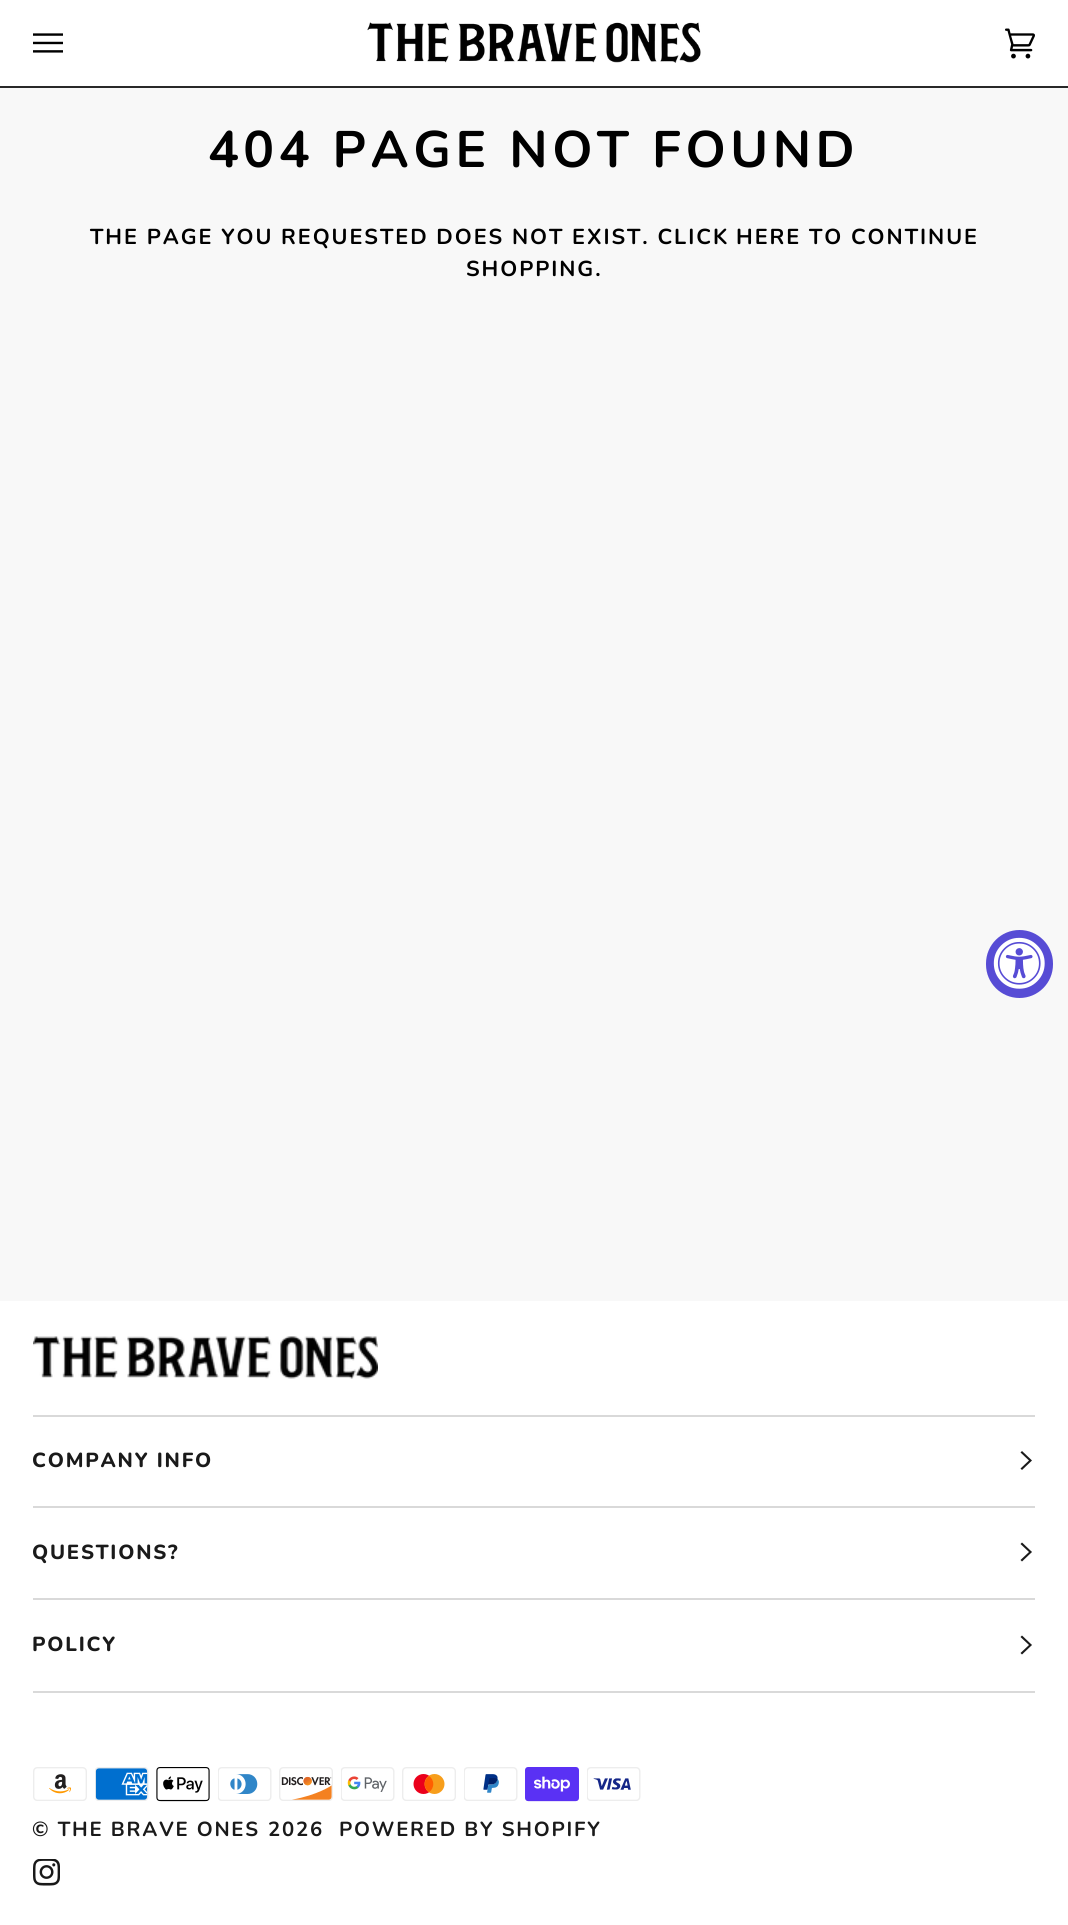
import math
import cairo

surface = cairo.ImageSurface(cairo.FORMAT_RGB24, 1068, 1925)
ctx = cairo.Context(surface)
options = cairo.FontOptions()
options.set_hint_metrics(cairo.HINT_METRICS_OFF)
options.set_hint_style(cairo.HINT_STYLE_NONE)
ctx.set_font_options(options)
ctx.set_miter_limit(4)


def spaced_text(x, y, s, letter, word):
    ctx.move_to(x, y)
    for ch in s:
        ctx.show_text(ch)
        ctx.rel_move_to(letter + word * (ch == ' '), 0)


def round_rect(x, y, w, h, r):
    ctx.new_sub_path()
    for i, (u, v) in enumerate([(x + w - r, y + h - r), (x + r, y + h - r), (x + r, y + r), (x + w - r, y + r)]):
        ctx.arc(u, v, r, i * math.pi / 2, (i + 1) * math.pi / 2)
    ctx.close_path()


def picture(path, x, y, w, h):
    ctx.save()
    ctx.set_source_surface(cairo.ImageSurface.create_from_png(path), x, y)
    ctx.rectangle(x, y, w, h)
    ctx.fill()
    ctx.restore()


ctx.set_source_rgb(1, 1, 1)
ctx.paint()
ctx.set_source_rgb(0.157, 0.157, 0.157)
ctx.rectangle(0, 86, 1068, 2)
ctx.fill()
picture("img1.png", 33, 33, 30, 20)
picture("img2.png", 367, 22, 334, 41)
picture("img3.png", 1005, 28, 30, 31)
ctx.set_source_rgb(0.969, 0.969, 0.969)
ctx.rectangle(0, 88, 1068, 1213)
ctx.fill()
ctx.select_font_face("Nunito", cairo.FONT_SLANT_NORMAL, cairo.FONT_WEIGHT_BOLD)
ctx.set_font_size(51.25)
ctx.set_source_rgb(0, 0, 0)
spaced_text(208, 167, "404 PAGE NOT FOUND", 4.6, 0)
ctx.set_font_size(21.6)
spaced_text(90, 244, "THE PAGE YOU REQUESTED DOES NOT EXIST. CLICK", 1.95, 0)
spaced_text(736, 244, "HERE TO CONTINUE", 1.95, 0)
spaced_text(466, 276, "SHOPPING.", 1.95, 0)
ctx.set_source_rgb(0.341, 0.298, 0.835)
round_rect(986, 930, 67, 68, 33.5)
ctx.fill()
picture("img4.png", 993, 937, 52, 52)
picture("img5.png", 33, 1336, 345, 43)
ctx.set_source_rgb(0.851, 0.851, 0.851)
ctx.rectangle(33, 1415, 1002, 2)
ctx.fill()
ctx.rectangle(33, 1506, 1002, 2)
ctx.fill()
ctx.select_font_face("Nunito ExtraBold")
ctx.set_font_size(20.3)
ctx.set_source_rgb(0.102, 0.102, 0.102)
spaced_text(32, 1467, "COMPANY INFO", 1.8, 0)
ctx.set_fill_rule(cairo.FILL_RULE_EVEN_ODD)
ctx.new_path()
ctx.move_to(1029, 1460.5)
ctx.line_to(1020.5, 1452.5)
ctx.line_to(1022, 1451)
ctx.line_to(1032, 1460.5)
ctx.line_to(1022, 1470)
ctx.line_to(1020.5, 1468.5)
ctx.close_path()
ctx.fill()
ctx.set_source_rgb(0.851, 0.851, 0.851)
ctx.rectangle(33, 1598, 1002, 2)
ctx.fill()
ctx.set_source_rgb(0.102, 0.102, 0.102)
spaced_text(32, 1559, "QUESTIONS?", 1.8, 0)
ctx.new_path()
ctx.move_to(1029, 1552)
ctx.line_to(1020.5, 1544)
ctx.line_to(1022, 1542.5)
ctx.line_to(1032, 1552)
ctx.line_to(1022, 1561.5)
ctx.line_to(1020.5, 1560)
ctx.close_path()
ctx.fill()
ctx.set_source_rgb(0.851, 0.851, 0.851)
ctx.rectangle(33, 1691, 1002, 2)
ctx.fill()
ctx.set_source_rgb(0.102, 0.102, 0.102)
spaced_text(32, 1651, "POLICY", 1.8, 0)
ctx.new_path()
ctx.move_to(1029, 1645)
ctx.line_to(1020.5, 1637)
ctx.line_to(1022, 1635.5)
ctx.line_to(1032, 1645)
ctx.line_to(1022, 1654.5)
ctx.line_to(1020.5, 1653)
ctx.close_path()
ctx.fill()
picture("img6.png", 33, 1767, 54, 34)
picture("img7.png", 95, 1767, 54, 34)
picture("img8.png", 156, 1767, 54, 35)
picture("img9.png", 218, 1767, 54, 34)
picture("img10.png", 279, 1767, 54, 34)
picture("img11.png", 341, 1767, 54, 34)
picture("img12.png", 402, 1767, 54, 34)
picture("img13.png", 464, 1767, 54, 34)
picture("img14.png", 525, 1767, 54, 35)
picture("img15.png", 587, 1767, 54, 34)
ctx.select_font_face("Nunito", cairo.FONT_SLANT_NORMAL, cairo.FONT_WEIGHT_BOLD)
spaced_text(32, 1836, "© THE BRAVE ONES", 1.8, 0)
spaced_text(268, 1836, "2026", 1.8, 0)
spaced_text(339, 1836, "POWERED BY SHOPIFY", 1.8, 0)
picture("img16.png", 33, 1859, 27, 27)
surface.write_to_png("page.png")
